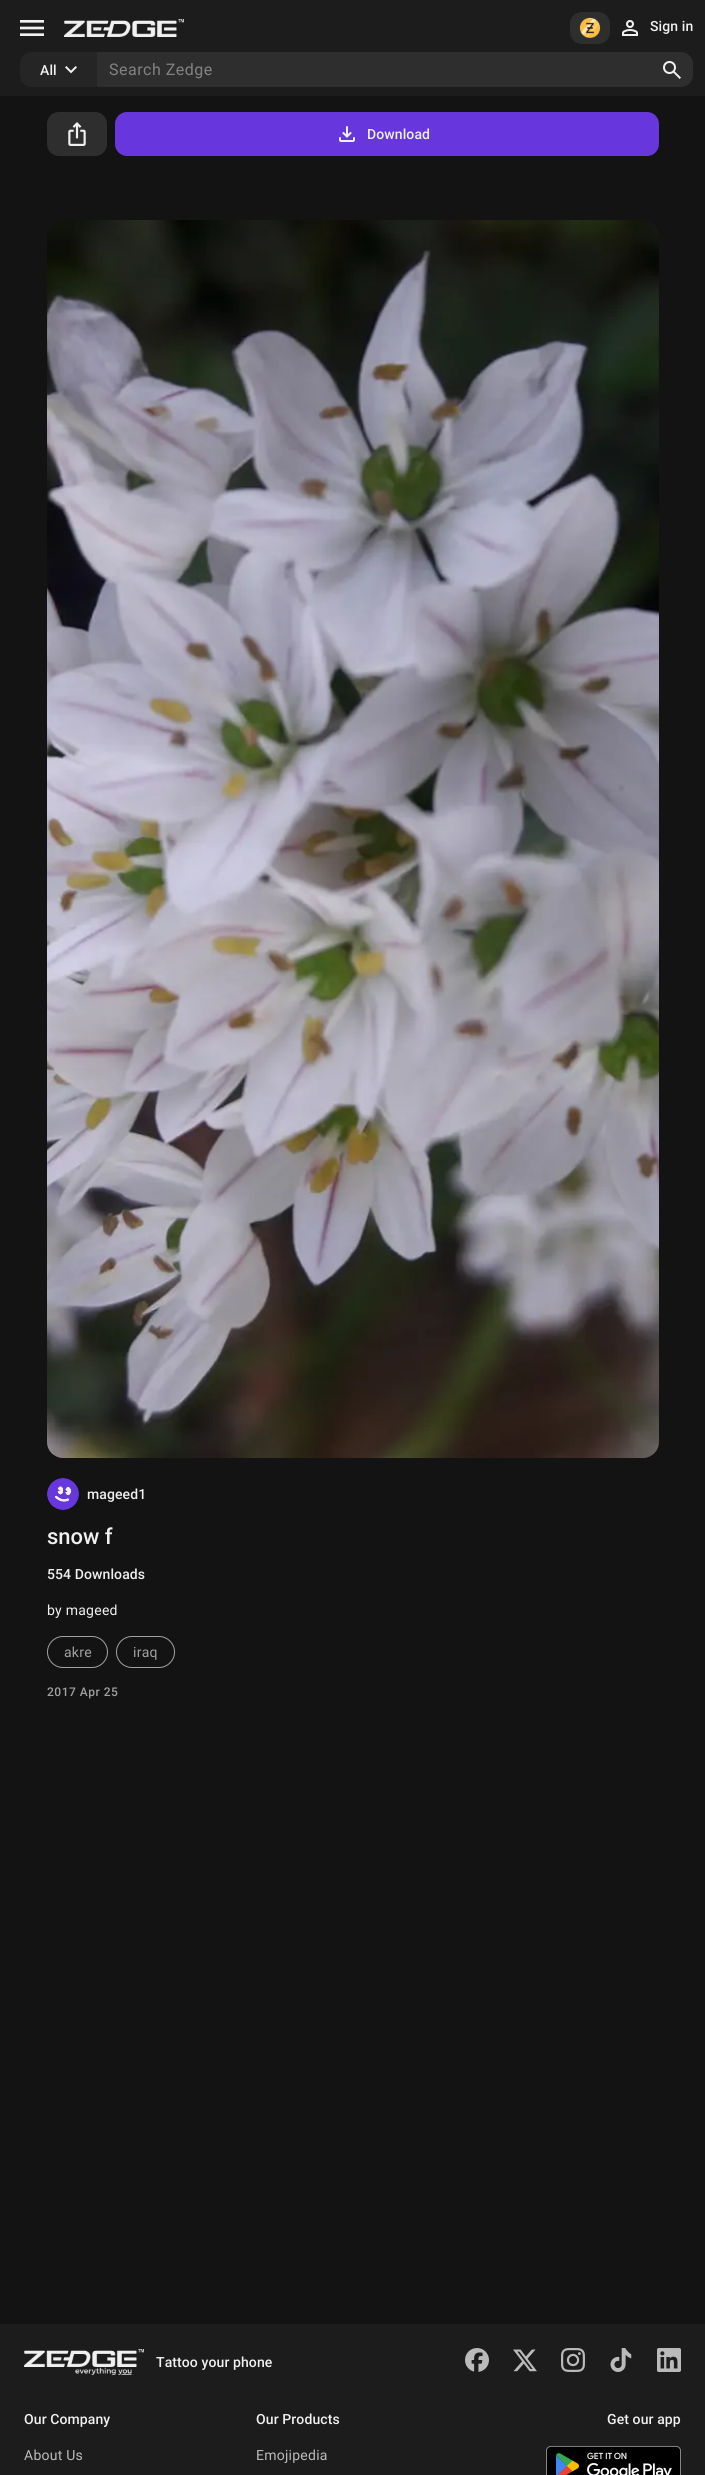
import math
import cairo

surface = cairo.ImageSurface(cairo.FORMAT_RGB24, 705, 2475)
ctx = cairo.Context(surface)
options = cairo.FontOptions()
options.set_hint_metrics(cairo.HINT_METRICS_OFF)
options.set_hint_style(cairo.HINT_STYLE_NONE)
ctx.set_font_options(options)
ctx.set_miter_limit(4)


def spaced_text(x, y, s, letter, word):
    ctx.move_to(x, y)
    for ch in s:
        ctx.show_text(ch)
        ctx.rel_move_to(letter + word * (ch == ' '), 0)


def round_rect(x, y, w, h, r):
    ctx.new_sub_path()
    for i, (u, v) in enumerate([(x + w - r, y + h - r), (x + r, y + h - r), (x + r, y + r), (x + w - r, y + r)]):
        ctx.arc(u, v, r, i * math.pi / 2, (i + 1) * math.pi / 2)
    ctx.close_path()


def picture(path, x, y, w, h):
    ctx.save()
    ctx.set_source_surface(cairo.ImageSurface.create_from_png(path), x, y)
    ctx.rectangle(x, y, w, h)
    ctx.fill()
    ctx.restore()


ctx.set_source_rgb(0.078, 0.078, 0.078)
ctx.paint()
ctx.set_source_rgb(0.11, 0.11, 0.11)
ctx.rectangle(0, 0, 705, 96)
ctx.fill()
picture("img1.png", 20, 20, 24, 16)
picture("img2.png", 64, 19, 120, 18)
ctx.set_source_rgb(0.18, 0.18, 0.18)
round_rect(570, 12, 40, 32, 12)
ctx.fill()
picture("img3.png", 579, 17, 22, 21)
picture("img4.png", 622, 20, 16, 16)
ctx.select_font_face("Roboto Medium")
ctx.set_font_size(14)
ctx.set_source_rgb(0.941, 0.941, 0.941)
spaced_text(650, 31, "Sign in", 0.1, 0)
ctx.set_source_rgb(0.145, 0.145, 0.145)
ctx.new_path()
ctx.move_to(32, 52)
ctx.line_to(97, 52)
ctx.line_to(97, 87)
ctx.line_to(32, 87)
ctx.curve_to(25.5, 87, 20, 81.5, 20, 75)
ctx.line_to(20, 64)
ctx.curve_to(20, 57.5, 25.5, 52, 32, 52)
ctx.close_path()
ctx.fill()
ctx.set_source_rgb(0.941, 0.941, 0.941)
spaced_text(40, 75, "All", 0.1, 0)
picture("img5.png", 65, 66, 12, 8)
ctx.set_source_rgb(0.18, 0.18, 0.18)
ctx.new_path()
ctx.move_to(97, 52)
ctx.line_to(681, 52)
ctx.curve_to(687.5, 52, 693, 57.5, 693, 64)
ctx.line_to(693, 75)
ctx.curve_to(693, 81.5, 687.5, 87, 681, 87)
ctx.line_to(97, 87)
ctx.close_path()
ctx.fill()
ctx.select_font_face("Roboto")
ctx.set_font_size(16)
ctx.set_source_rgb(0.51, 0.51, 0.51)
spaced_text(109, 75, "Search Zedge", 0.5, 0)
picture("img6.png", 663, 61, 18, 18)
ctx.set_source_rgb(0.18, 0.18, 0.18)
round_rect(47, 112, 60, 44, 12)
ctx.fill()
picture("img7.png", 68, 122, 18, 24)
ctx.set_source_rgb(0.408, 0.212, 0.867)
round_rect(115, 112, 544, 44, 12)
ctx.fill()
picture("img8.png", 339, 126, 16, 16)
ctx.select_font_face("Roboto Medium")
ctx.set_font_size(14)
ctx.set_source_rgb(0.941, 0.941, 0.941)
spaced_text(367, 139, "Download", 0.1, 0)
picture("img9.png", 47, 220, 612, 1238)
picture("img10.png", 47, 1478, 32, 32)
spaced_text(87, 1499, "mageed1", 0.1, 0)
ctx.set_font_size(22)
ctx.move_to(47, 1544)
ctx.show_text("snow f")
ctx.set_font_size(14)
spaced_text(47, 1579, "554 Downloads", 0.1, 0)
ctx.select_font_face("Roboto")
spaced_text(47, 1615, "by mageed", 0.25, 0)
round_rect(47.5, 1636.5, 60, 31, 15.5)
ctx.set_source_rgb(0.631, 0.631, 0.631)
ctx.set_line_width(1)
ctx.stroke()
spaced_text(64, 1657, "akre", 0.25, 0)
round_rect(116.5, 1636.5, 58, 31, 15.5)
ctx.stroke()
spaced_text(133, 1657, "iraq", 0.25, 0)
ctx.select_font_face("Roboto Medium")
ctx.set_font_size(12)
spaced_text(47, 1696, "2017 Apr 25", 0.5, 0)
ctx.set_source_rgb(0.11, 0.11, 0.11)
ctx.rectangle(0, 2324, 705, 151)
ctx.fill()
picture("img11.png", 24, 2349, 120, 18)
picture("img12.png", 75, 2367, 57, 8)
ctx.set_font_size(14)
ctx.set_source_rgb(0.941, 0.941, 0.941)
spaced_text(156, 2367, "Tattoo your phone", 0.1, 0)
picture("img13.png", 465, 2348, 24, 24)
picture("img14.png", 513, 2349, 24, 23)
picture("img15.png", 561, 2348, 24, 24)
picture("img16.png", 610, 2348, 22, 24)
picture("img17.png", 657, 2348, 24, 24)
spaced_text(24, 2424, "Our Company", 0.1, 0)
ctx.select_font_face("Roboto")
ctx.set_source_rgb(0.733, 0.733, 0.733)
spaced_text(24, 2460, "About Us", 0.25, 0)
ctx.select_font_face("Roboto Medium")
ctx.set_source_rgb(0.941, 0.941, 0.941)
spaced_text(256, 2424, "Our Products", 0.1, 0)
ctx.select_font_face("Roboto")
ctx.set_source_rgb(0.733, 0.733, 0.733)
spaced_text(256, 2460, "Emojipedia", 0.25, 0)
ctx.select_font_face("Roboto Medium")
ctx.set_source_rgb(0.941, 0.941, 0.941)
spaced_text(607, 2424, "Get our app", 0.1, 0)
picture("img18.png", 546, 2445, 135, 30)
surface.write_to_png("page.png")
